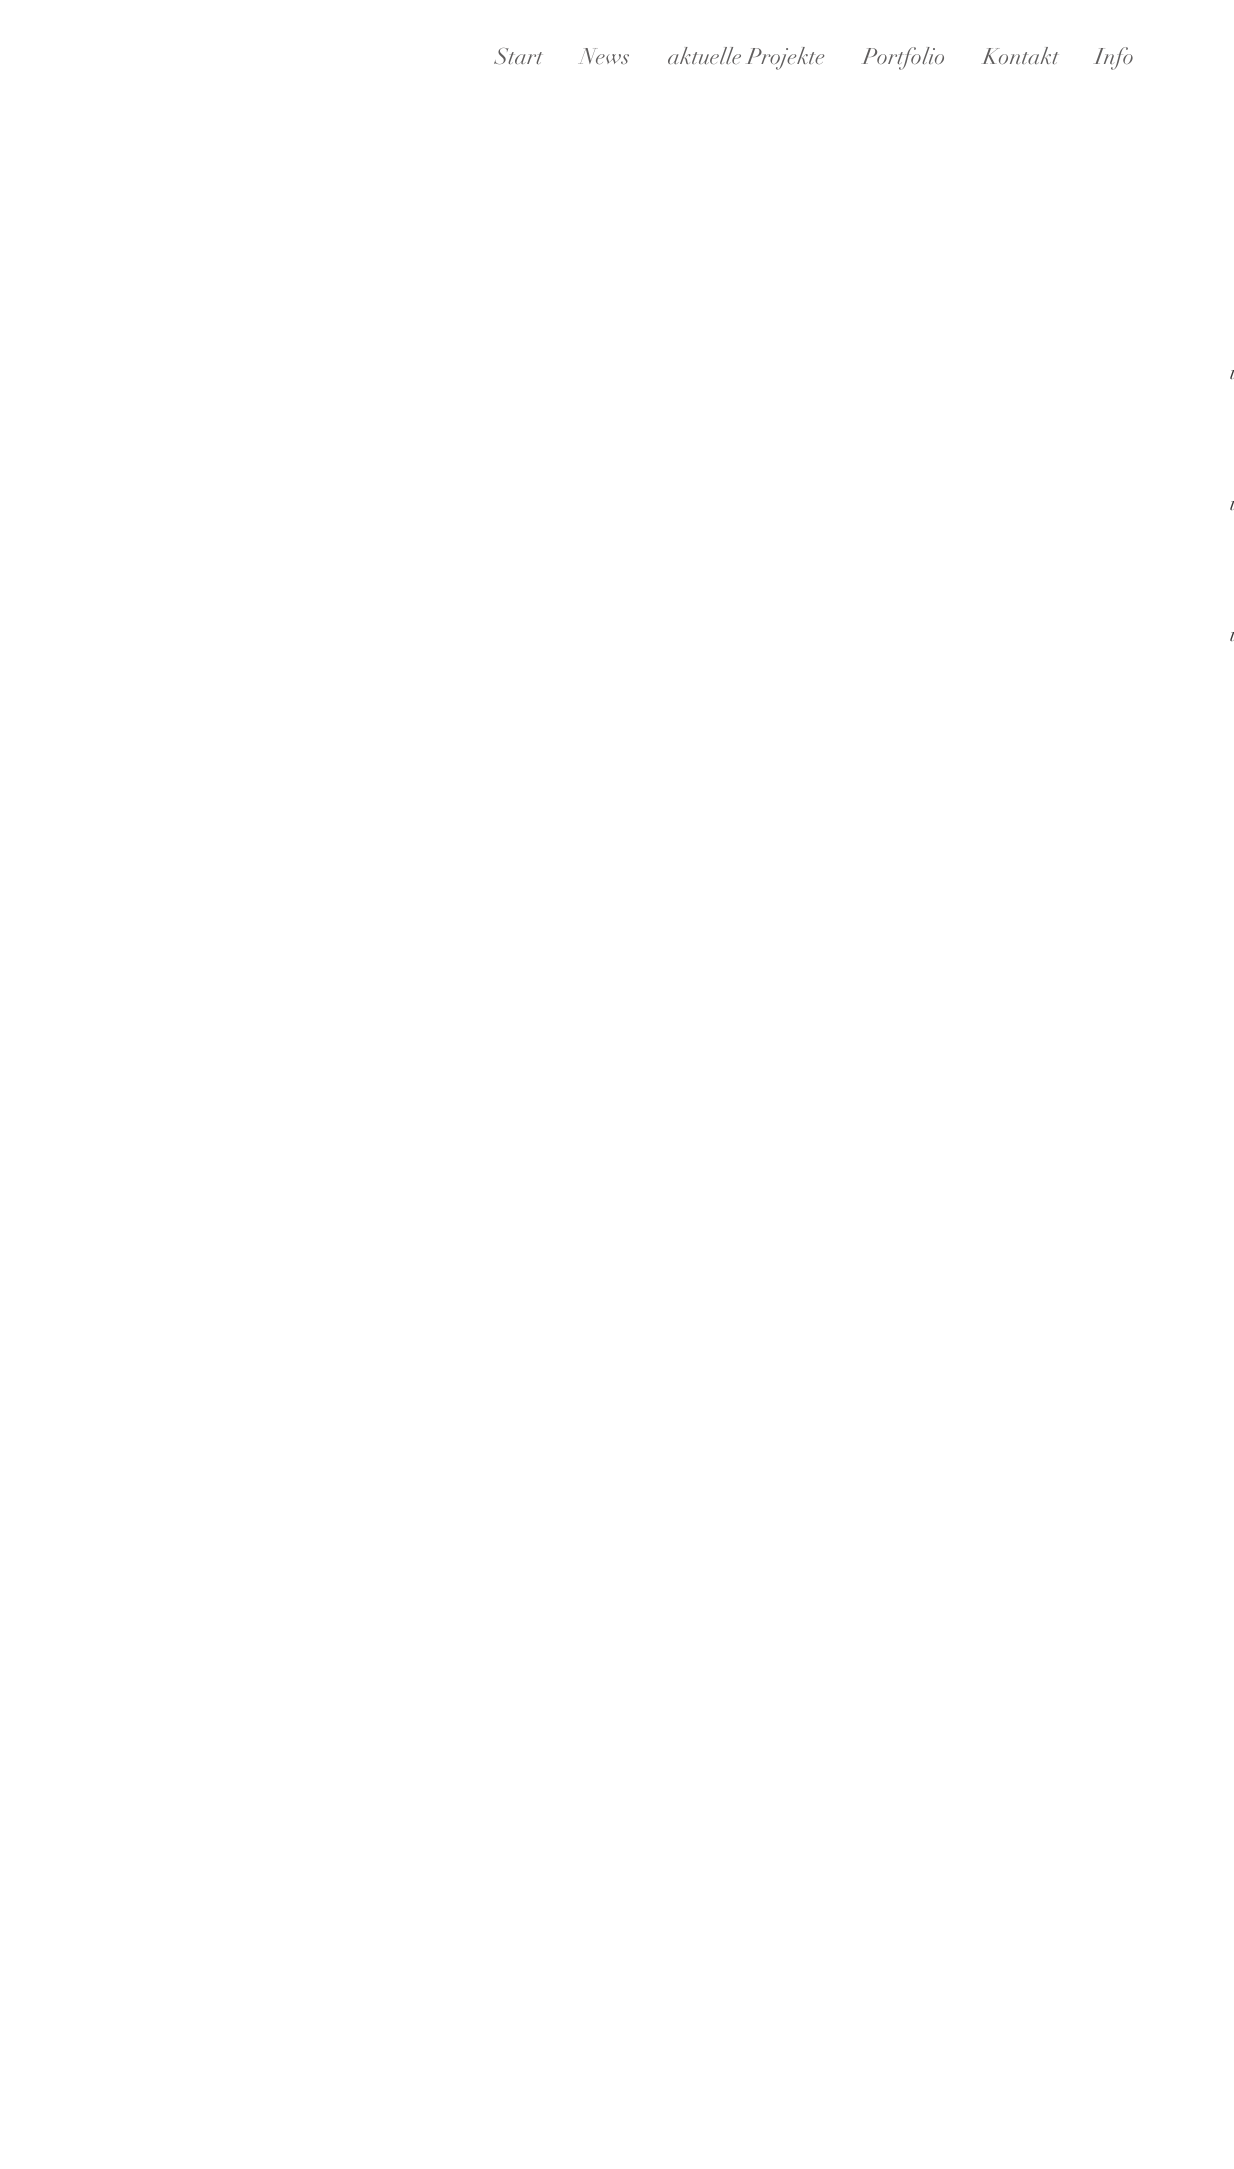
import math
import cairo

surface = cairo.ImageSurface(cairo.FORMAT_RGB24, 1234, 2169)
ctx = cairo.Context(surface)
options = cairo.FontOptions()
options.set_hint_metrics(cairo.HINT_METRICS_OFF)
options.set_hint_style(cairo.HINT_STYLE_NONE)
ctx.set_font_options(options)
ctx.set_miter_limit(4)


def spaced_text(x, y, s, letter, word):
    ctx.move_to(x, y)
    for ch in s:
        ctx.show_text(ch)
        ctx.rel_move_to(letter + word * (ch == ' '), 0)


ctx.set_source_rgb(1, 1, 1)
ctx.paint()
ctx.select_font_face("didot")
ctx.set_font_size(22.5)
ctx.set_source_rgb(0.376, 0.369, 0.369)
ctx.move_to(495, 64)
ctx.show_text("Start")
ctx.move_to(580, 64)
ctx.show_text("News")
ctx.move_to(668, 64)
ctx.show_text("aktuelle Projekte")
ctx.move_to(863, 64)
ctx.show_text("Portfolio")
ctx.move_to(983, 64)
ctx.show_text("Kontakt")
ctx.move_to(1095, 64)
ctx.show_text("Info")
ctx.set_font_size(21)
ctx.set_source_rgb(0.212, 0.212, 0.212)
spaced_text(1230, 379, "i", 0, 2)
spaced_text(1230, 510, "i", 0, 3)
spaced_text(1230, 641, "i", 0, 18)
surface.write_to_png("page.png")
